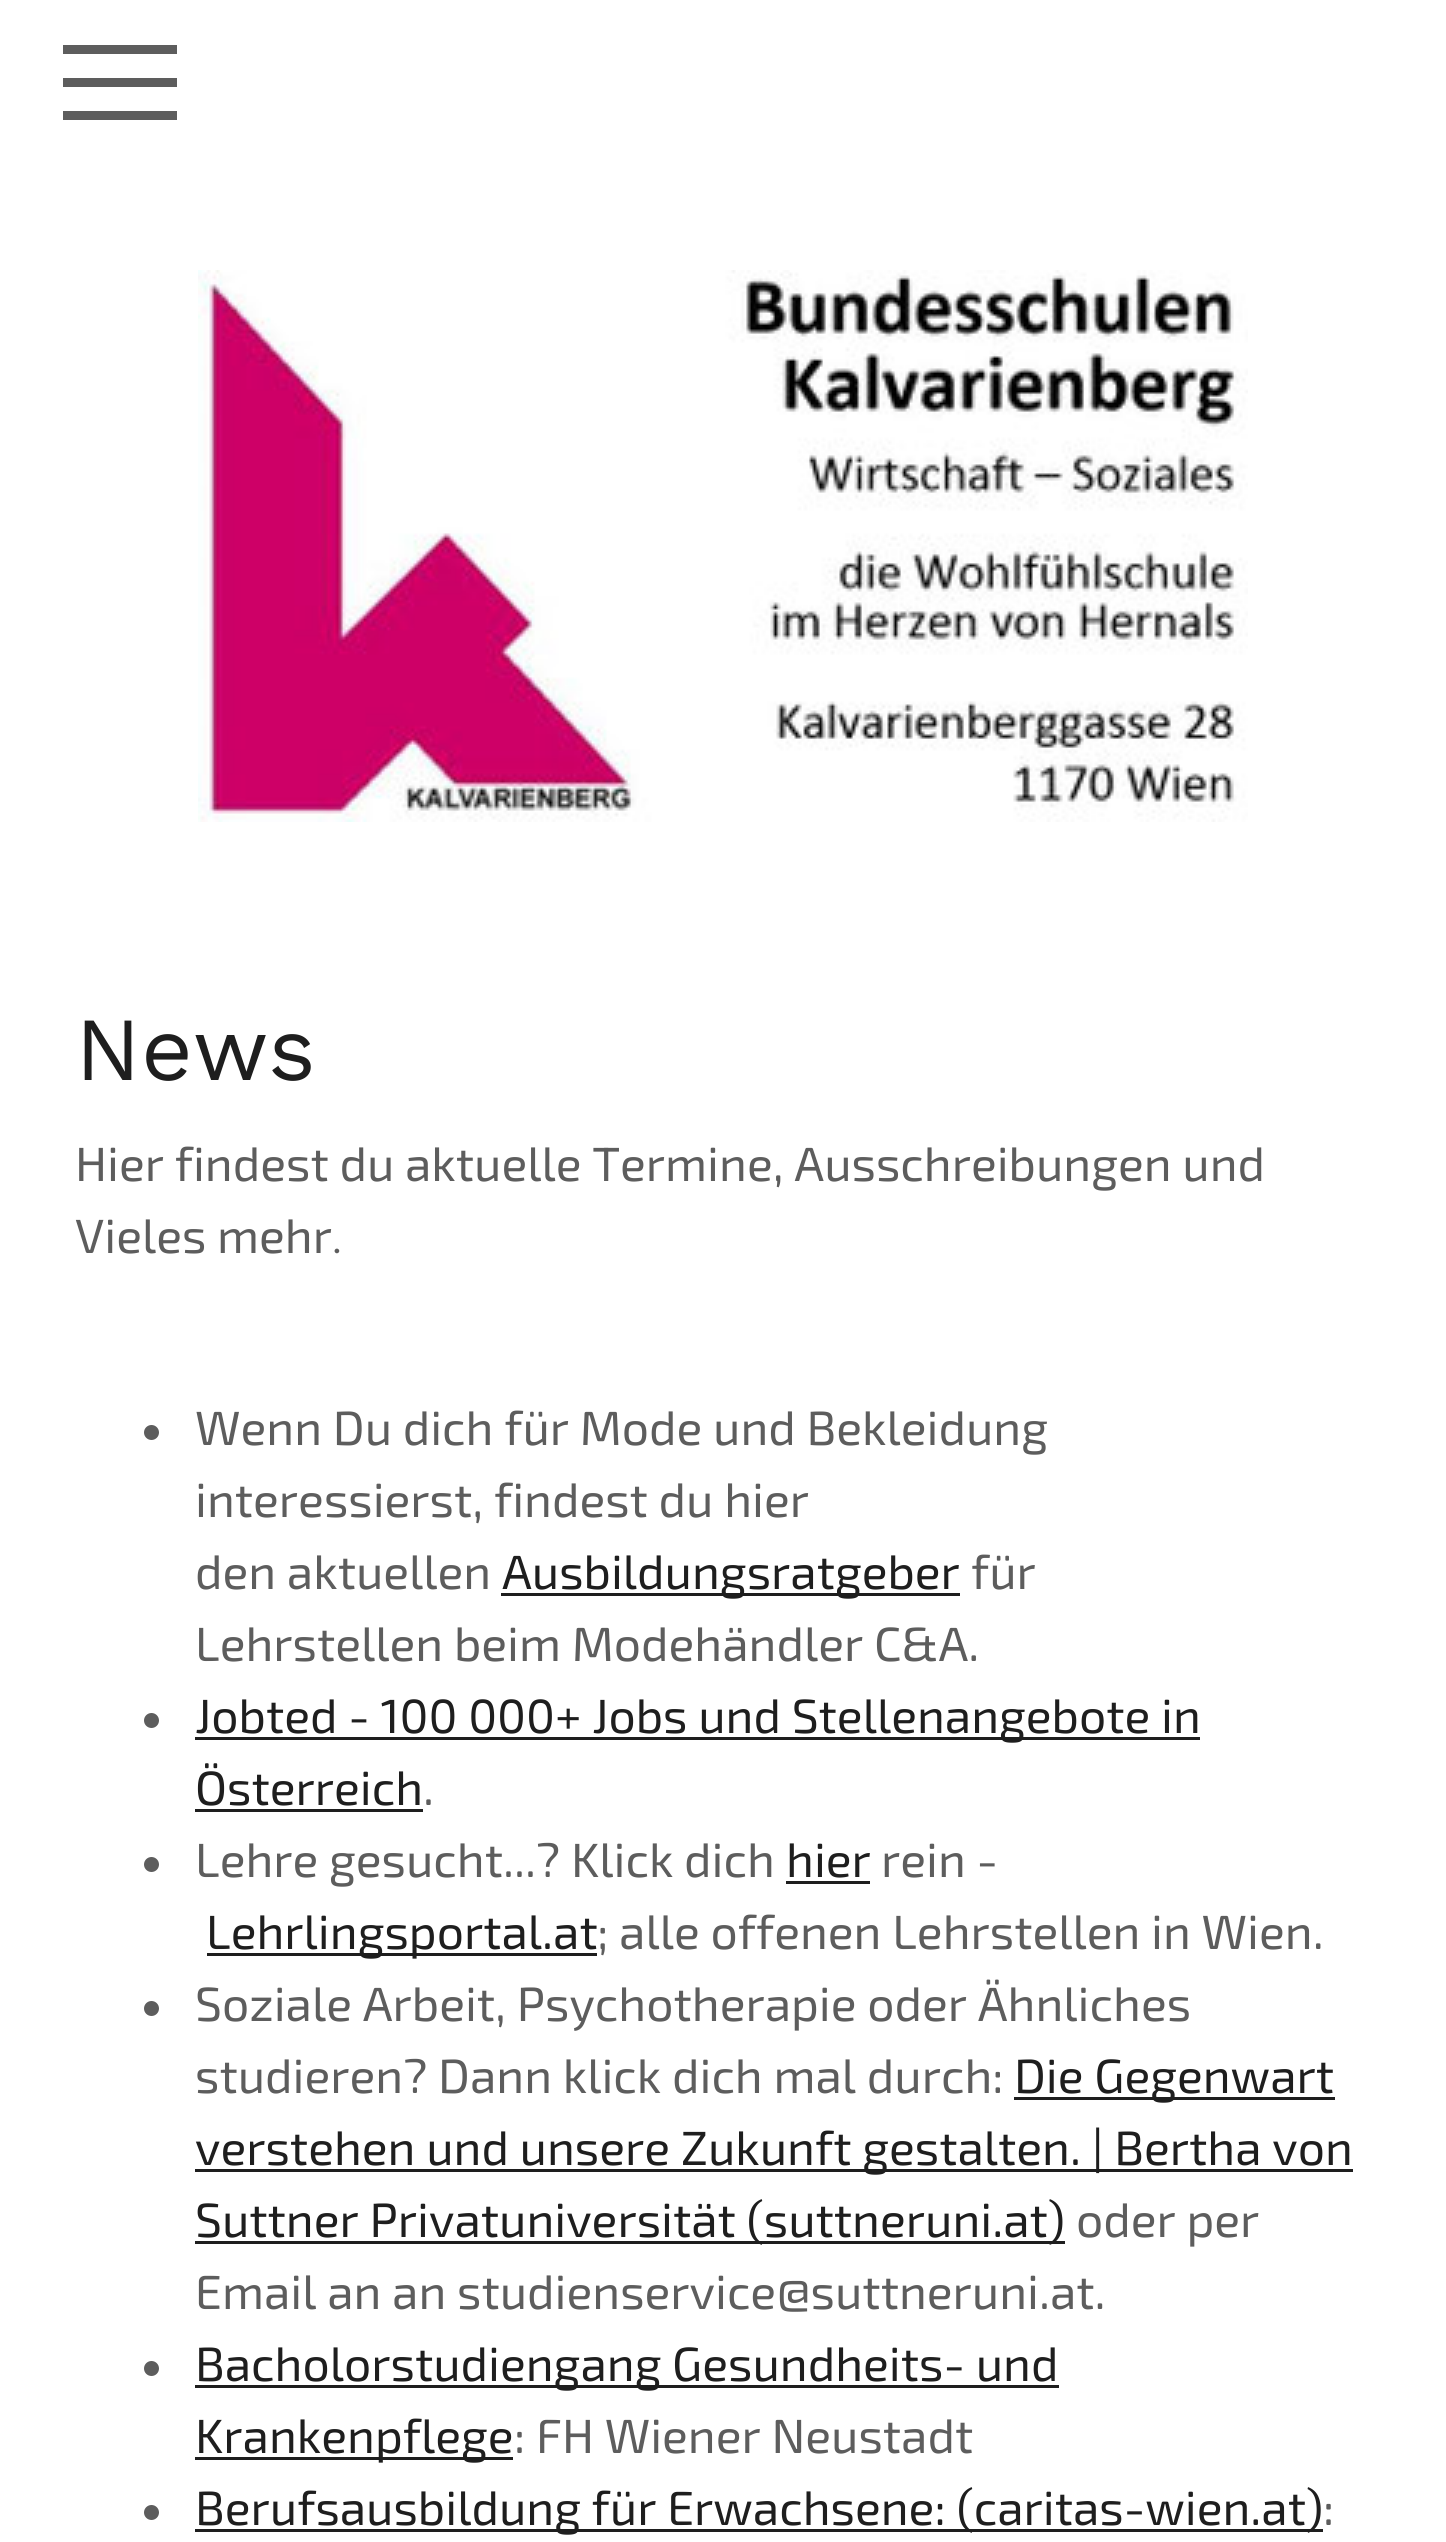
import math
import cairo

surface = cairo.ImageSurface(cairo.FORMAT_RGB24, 1446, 2542)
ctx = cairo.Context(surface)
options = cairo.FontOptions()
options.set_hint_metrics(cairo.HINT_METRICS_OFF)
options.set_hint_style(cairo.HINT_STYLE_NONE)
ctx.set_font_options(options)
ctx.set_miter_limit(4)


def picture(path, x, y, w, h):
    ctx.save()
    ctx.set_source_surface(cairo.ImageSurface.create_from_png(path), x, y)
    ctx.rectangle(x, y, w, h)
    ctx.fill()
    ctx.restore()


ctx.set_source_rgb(1, 1, 1)
ctx.paint()
ctx.set_source_rgb(0.365, 0.365, 0.365)
ctx.rectangle(63, 78, 114, 9)
ctx.fill()
ctx.rectangle(63, 45, 114, 9)
ctx.fill()
ctx.rectangle(63, 111, 114, 9)
ctx.fill()
picture("img1.png", 198, 270, 1050, 552)
ctx.select_font_face("Work Sans")
ctx.set_font_size(90)
ctx.set_source_rgb(0.118, 0.118, 0.118)
ctx.move_to(75, 1080)
ctx.show_text("News")
ctx.select_font_face("Exo 2")
ctx.set_font_size(48)
ctx.set_source_rgb(0.365, 0.365, 0.365)
ctx.move_to(75, 1181)
ctx.show_text("Hier findest du aktuelle Termine, Ausschreibungen und")
ctx.move_to(75, 1253)
ctx.show_text("Vieles mehr")
ctx.select_font_face("Carlito")
ctx.set_font_size(39)
ctx.move_to(332, 1253)
ctx.show_text(".")
ctx.new_path()
ctx.arc(151.5, 1432.5, 7.5, 0, 2 * math.pi)
ctx.fill()
ctx.select_font_face("Exo 2")
ctx.set_font_size(48)
ctx.move_to(195, 1445)
ctx.show_text("Wenn Du dich für Mode und Bekleidung")
ctx.move_to(195, 1517)
ctx.show_text("interessierst, findest du hier")
ctx.move_to(195, 1589)
ctx.show_text("den aktuellen")
ctx.set_source_rgb(0.118, 0.118, 0.118)
ctx.rectangle(501, 1593, 459, 3)
ctx.fill()
ctx.move_to(502, 1589)
ctx.show_text("Ausbildungsratgeber")
ctx.set_source_rgb(0.365, 0.365, 0.365)
ctx.move_to(971, 1589)
ctx.show_text("für")
ctx.move_to(195, 1661)
ctx.show_text("Lehrstellen beim Modehändler C&A.")
ctx.new_path()
ctx.arc(151.5, 1720.5, 7.5, 0, 2 * math.pi)
ctx.fill()
ctx.set_source_rgb(0.118, 0.118, 0.118)
ctx.rectangle(195, 1737, 1005, 3)
ctx.fill()
ctx.move_to(195, 1733)
ctx.show_text("Jobted - 100 000+ Jobs und Stellenangebote in")
ctx.move_to(195, 1805)
ctx.show_text("Österreich")
ctx.rectangle(195, 1809, 228, 3)
ctx.fill()
ctx.set_source_rgb(0.365, 0.365, 0.365)
ctx.move_to(423, 1805)
ctx.show_text(".")
ctx.new_path()
ctx.arc(151.5, 1864.5, 7.5, 0, 2 * math.pi)
ctx.fill()
ctx.move_to(195, 1877)
ctx.show_text("Lehre gesucht...? Klick dich")
ctx.set_source_rgb(0.118, 0.118, 0.118)
ctx.move_to(786, 1877)
ctx.show_text("hier")
ctx.rectangle(786, 1881, 84, 3)
ctx.fill()
ctx.set_source_rgb(0.365, 0.365, 0.365)
ctx.move_to(881, 1877)
ctx.show_text("rein -")
ctx.set_source_rgb(0.118, 0.118, 0.118)
ctx.rectangle(207, 1953, 390, 3)
ctx.fill()
ctx.move_to(206, 1949)
ctx.show_text("Lehrlingsportal.at")
ctx.set_source_rgb(0.365, 0.365, 0.365)
ctx.move_to(597, 1949)
ctx.show_text("; alle offenen Lehrstellen in Wien.")
ctx.new_path()
ctx.arc(151.5, 2008.5, 7.5, 0, 2 * math.pi)
ctx.fill()
ctx.move_to(195, 2021)
ctx.show_text("Soziale Arbeit, Psychotherapie oder Ähnliches")
ctx.move_to(195, 2093)
ctx.show_text("studieren? Dann klick dich mal durch:")
ctx.set_source_rgb(0.118, 0.118, 0.118)
ctx.rectangle(1014, 2097, 321, 3)
ctx.fill()
ctx.move_to(1014, 2093)
ctx.show_text("Die Gegenwart")
ctx.rectangle(195, 2169, 1158, 3)
ctx.fill()
ctx.move_to(195, 2165)
ctx.show_text("verstehen und unsere Zukunft gestalten. | Bertha von")
ctx.rectangle(195, 2241, 870, 3)
ctx.fill()
ctx.move_to(195, 2237)
ctx.show_text("Suttner Privatuniversität (suttneruni.at)")
ctx.set_source_rgb(0.365, 0.365, 0.365)
ctx.move_to(1076, 2237)
ctx.show_text("oder per")
ctx.move_to(195, 2309)
ctx.show_text("Email an an studienservice@suttneruni.at.")
ctx.new_path()
ctx.arc(151.5, 2368.5, 7.5, 0, 2 * math.pi)
ctx.fill()
ctx.set_source_rgb(0.118, 0.118, 0.118)
ctx.rectangle(195, 2385, 864, 3)
ctx.fill()
ctx.move_to(195, 2381)
ctx.show_text("Bacholorstudiengang Gesundheits- und")
ctx.rectangle(195, 2457, 318, 3)
ctx.fill()
ctx.move_to(195, 2453)
ctx.show_text("Krankenpflege")
ctx.set_source_rgb(0.365, 0.365, 0.365)
ctx.move_to(514, 2453)
ctx.show_text(": FH Wiener Neustadt")
ctx.new_path()
ctx.arc(151.5, 2512.5, 7.5, 0, 2 * math.pi)
ctx.fill()
ctx.set_source_rgb(0.118, 0.118, 0.118)
ctx.rectangle(195, 2529, 1128, 3)
ctx.fill()
ctx.move_to(195, 2525)
ctx.show_text("Berufsausbildung für Erwachsene: (caritas-wien.at)")
ctx.set_source_rgb(0.365, 0.365, 0.365)
ctx.move_to(1323, 2525)
ctx.show_text(":")
surface.write_to_png("page.png")
